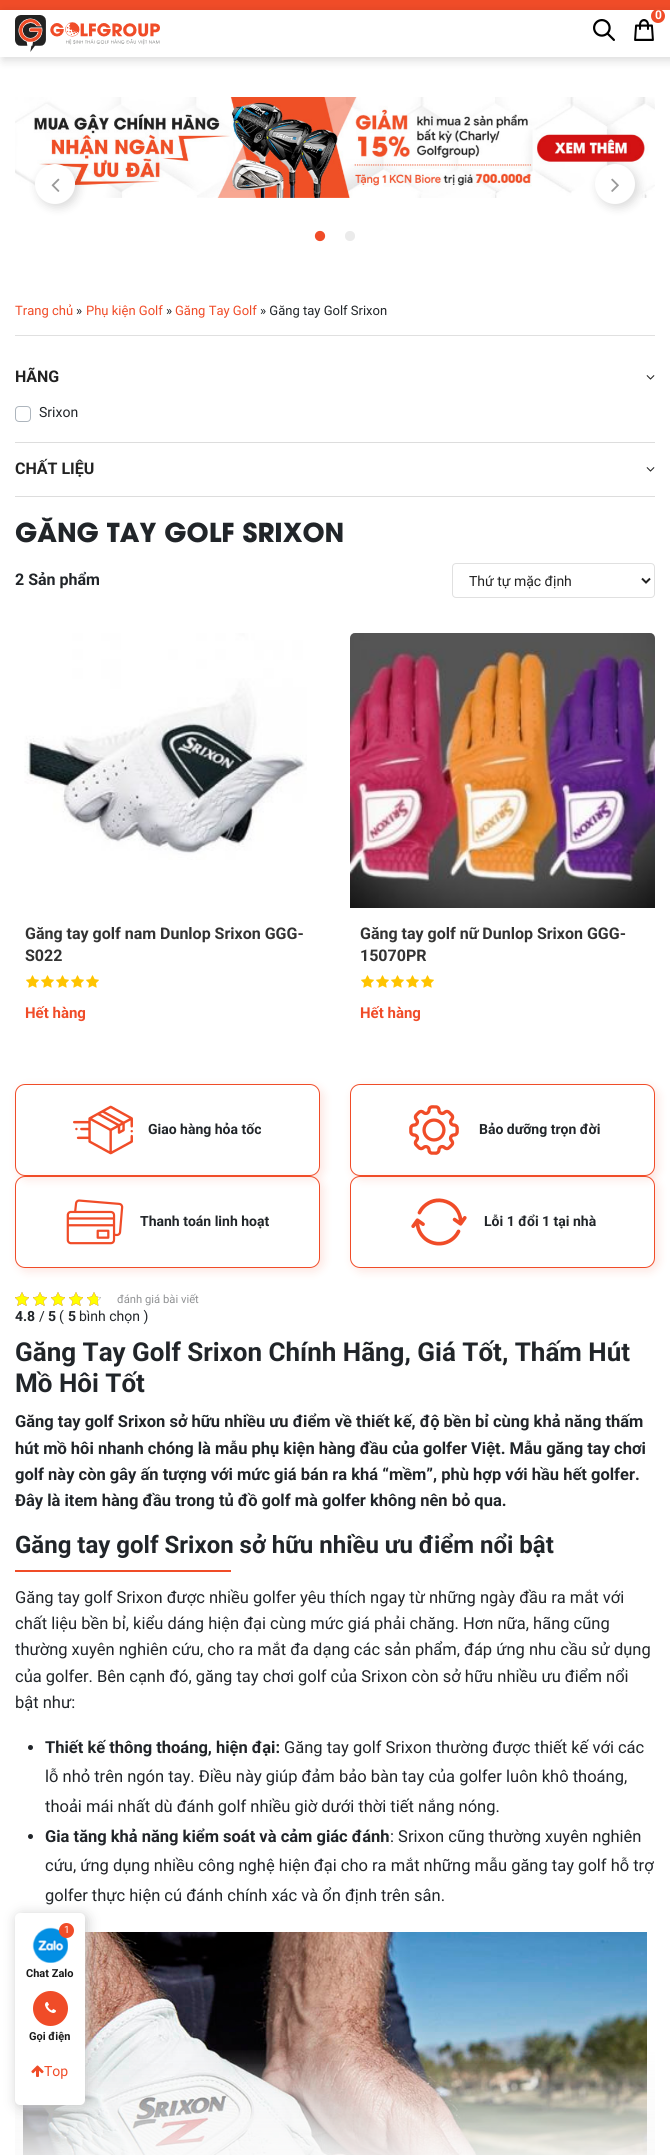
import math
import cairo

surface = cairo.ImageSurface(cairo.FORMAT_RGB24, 670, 2155)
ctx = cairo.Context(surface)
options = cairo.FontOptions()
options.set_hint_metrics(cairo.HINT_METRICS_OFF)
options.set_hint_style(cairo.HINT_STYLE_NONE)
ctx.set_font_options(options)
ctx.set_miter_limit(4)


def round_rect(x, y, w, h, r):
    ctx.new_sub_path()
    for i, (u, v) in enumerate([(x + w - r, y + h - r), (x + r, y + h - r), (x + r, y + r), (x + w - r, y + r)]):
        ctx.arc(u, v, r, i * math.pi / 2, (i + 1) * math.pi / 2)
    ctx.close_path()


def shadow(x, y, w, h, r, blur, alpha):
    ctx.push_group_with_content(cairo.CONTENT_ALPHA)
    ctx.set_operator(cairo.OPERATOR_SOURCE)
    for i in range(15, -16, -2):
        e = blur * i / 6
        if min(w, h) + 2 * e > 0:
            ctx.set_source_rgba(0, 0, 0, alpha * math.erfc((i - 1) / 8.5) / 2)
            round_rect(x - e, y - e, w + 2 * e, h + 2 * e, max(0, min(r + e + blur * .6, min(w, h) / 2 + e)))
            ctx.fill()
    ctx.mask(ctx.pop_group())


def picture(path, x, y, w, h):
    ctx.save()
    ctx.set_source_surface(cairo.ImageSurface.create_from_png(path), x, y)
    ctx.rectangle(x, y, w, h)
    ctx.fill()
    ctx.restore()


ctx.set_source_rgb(1, 1, 1)
ctx.paint()
ctx.set_source_rgb(0.941, 0.298, 0.157)
ctx.rectangle(0, 0, 670, 10)
ctx.fill()
ctx.save()
ctx.set_fill_rule(cairo.FILL_RULE_EVEN_ODD)
ctx.new_path()
ctx.move_to(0, 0)
ctx.line_to(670, 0)
ctx.line_to(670, 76)
ctx.line_to(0, 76)
ctx.close_path()
ctx.move_to(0, 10)
ctx.line_to(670, 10)
ctx.line_to(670, 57)
ctx.line_to(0, 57)
ctx.close_path()
ctx.clip()
ctx.set_source_rgb(0, 0, 0)
shadow(3, 13, 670, 47, 0, 5, 0.15)
ctx.restore()
picture("img1.png", 15, 15, 145, 37)
picture("img2.png", 634, 19, 20, 22)
ctx.arc(658, 16, 7, 0, 2 * math.pi)
ctx.fill()
ctx.select_font_face("Roboto", cairo.FONT_SLANT_NORMAL, cairo.FONT_WEIGHT_BOLD)
ctx.set_font_size(12)
ctx.set_source_rgb(1, 1, 1)
ctx.move_to(655, 19)
ctx.show_text("0")
picture("img3.png", 593, 19, 22, 22)
picture("img4.png", 15, 97, 640, 101)
ctx.set_source_rgb(0, 0, 0)
shadow(38, 167, 40, 40, 20, 5, 0.15)
ctx.set_source_rgb(1, 1, 1)
ctx.arc(55, 184, 20, 0, 2 * math.pi)
ctx.fill()
picture("img5.png", 51, 178, 9, 14)
ctx.set_source_rgb(0, 0, 0)
shadow(598, 167, 40, 40, 20, 5, 0.15)
ctx.set_source_rgb(1, 1, 1)
ctx.arc(615, 184, 20, 0, 2 * math.pi)
ctx.fill()
picture("img6.png", 611, 178, 8, 14)
picture("img7.png", 314, 230, 12, 12)
picture("img8.png", 345, 231, 10, 10)
ctx.set_source_rgb(0.878, 0.878, 0.878)
ctx.rectangle(15, 335, 640, 1)
ctx.fill()
ctx.select_font_face("Roboto")
ctx.set_font_size(13)
ctx.set_source_rgb(0.941, 0.298, 0.157)
ctx.move_to(15, 315)
ctx.show_text("Trang chủ")
ctx.set_source_rgb(0.129, 0.145, 0.161)
ctx.move_to(76, 315)
ctx.show_text("»")
ctx.set_source_rgb(0.941, 0.298, 0.157)
ctx.move_to(86, 315)
ctx.show_text("Phụ kiện Golf")
ctx.set_source_rgb(0.129, 0.145, 0.161)
ctx.move_to(166, 315)
ctx.show_text("»")
ctx.set_source_rgb(0.941, 0.298, 0.157)
ctx.move_to(175, 315)
ctx.show_text("Găng Tay Golf")
ctx.set_source_rgb(0.129, 0.145, 0.161)
ctx.move_to(260, 315)
ctx.show_text("» Găng tay Golf Srixon")
ctx.set_source_rgb(0.867, 0.867, 0.867)
ctx.rectangle(15, 442, 640, 1)
ctx.fill()
ctx.select_font_face("Roboto", cairo.FONT_SLANT_NORMAL, cairo.FONT_WEIGHT_BOLD)
ctx.set_font_size(16)
ctx.set_source_rgb(0.133, 0.133, 0.133)
ctx.move_to(15, 382)
ctx.show_text("HÃNG")
picture("img9.png", 646, 375, 9, 5)
round_rect(15.5, 406.5, 15, 15, 3.5)
ctx.set_source_rgb(0.678, 0.71, 0.741)
ctx.set_line_width(1)
ctx.stroke()
ctx.select_font_face("Roboto")
ctx.set_font_size(14)
ctx.set_source_rgb(0.129, 0.145, 0.161)
ctx.move_to(39, 417)
ctx.show_text("Srixon")
ctx.set_source_rgb(0.867, 0.867, 0.867)
ctx.rectangle(15, 496, 640, 1)
ctx.fill()
ctx.select_font_face("Roboto", cairo.FONT_SLANT_NORMAL, cairo.FONT_WEIGHT_BOLD)
ctx.set_font_size(16)
ctx.set_source_rgb(0.133, 0.133, 0.133)
ctx.move_to(15, 474)
ctx.show_text("CHẤT LIỆU")
picture("img9.png", 646, 467, 9, 5)
ctx.select_font_face("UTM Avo", cairo.FONT_SLANT_NORMAL, cairo.FONT_WEIGHT_BOLD)
ctx.set_font_size(26)
ctx.set_source_rgb(0.129, 0.145, 0.161)
ctx.move_to(15, 542)
ctx.show_text("GĂNG TAY GOLF SRIXON")
ctx.select_font_face("Roboto", cairo.FONT_SLANT_NORMAL, cairo.FONT_WEIGHT_BOLD)
ctx.set_font_size(16)
ctx.move_to(15, 585)
ctx.show_text("2 Sản phẩm")
round_rect(452.5, 563.5, 202, 34, 3.5)
ctx.set_source_rgb(0.878, 0.878, 0.878)
ctx.stroke()
ctx.new_path()
ctx.move_to(642, 578.5)
ctx.line_to(646, 582.5)
ctx.line_to(650, 578.5)
ctx.set_source_rgb(0.133, 0.133, 0.133)
ctx.set_line_width(2)
ctx.stroke()
ctx.select_font_face("Roboto")
ctx.set_font_size(14)
ctx.move_to(469, 586)
ctx.show_text("Thứ tự mặc định")
picture("img10.png", 24, 633, 283, 227)
ctx.select_font_face("Roboto", cairo.FONT_SLANT_NORMAL, cairo.FONT_WEIGHT_BOLD)
ctx.set_font_size(16)
ctx.set_source_rgb(0.2, 0.2, 0.2)
ctx.move_to(25, 939)
ctx.show_text("Găng tay golf nam Dunlop Srixon GGG-")
ctx.move_to(25, 961)
ctx.show_text("S022")
picture("img11.png", 26, 975, 13, 13)
picture("img11.png", 41, 975, 13, 13)
picture("img11.png", 56, 975, 13, 13)
picture("img11.png", 71, 975, 13, 13)
picture("img11.png", 86, 975, 13, 13)
ctx.set_font_size(15)
ctx.set_source_rgb(0.941, 0.298, 0.157)
ctx.move_to(25, 1018)
ctx.show_text("Hết hàng")
picture("img12.png", 350, 633, 305, 275)
ctx.set_font_size(16)
ctx.set_source_rgb(0.2, 0.2, 0.2)
ctx.move_to(360, 939)
ctx.show_text("Găng tay golf nữ Dunlop Srixon GGG-")
ctx.move_to(360, 961)
ctx.show_text("15070PR")
picture("img11.png", 361, 975, 13, 13)
picture("img11.png", 376, 975, 13, 13)
picture("img11.png", 391, 975, 13, 13)
picture("img11.png", 406, 975, 13, 13)
picture("img11.png", 421, 975, 13, 13)
ctx.set_font_size(15)
ctx.set_source_rgb(0.941, 0.298, 0.157)
ctx.move_to(360, 1018)
ctx.show_text("Hết hàng")
ctx.save()
ctx.set_fill_rule(cairo.FILL_RULE_EVEN_ODD)
ctx.new_path()
ctx.move_to(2, 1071)
ctx.line_to(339, 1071)
ctx.line_to(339, 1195)
ctx.line_to(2, 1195)
ctx.close_path()
ctx.move_to(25, 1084)
ctx.line_to(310, 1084)
ctx.curve_to(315.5, 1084, 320, 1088.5, 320, 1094)
ctx.line_to(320, 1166)
ctx.curve_to(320, 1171.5, 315.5, 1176, 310, 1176)
ctx.line_to(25, 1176)
ctx.curve_to(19.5, 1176, 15, 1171.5, 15, 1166)
ctx.line_to(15, 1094)
ctx.curve_to(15, 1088.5, 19.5, 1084, 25, 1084)
ctx.close_path()
ctx.clip()
ctx.set_source_rgb(0.941, 0.298, 0.157)
shadow(18, 1087, 305, 92, 10, 5, 0.15)
ctx.restore()
round_rect(15.5, 1084.5, 304, 91, 9.5)
ctx.set_line_width(1)
ctx.stroke()
picture("img13.png", 73, 1105, 60, 50)
ctx.set_font_size(14)
ctx.set_source_rgb(0.129, 0.145, 0.161)
ctx.move_to(148, 1134)
ctx.show_text("Giao hàng hỏa tốc")
ctx.save()
ctx.set_fill_rule(cairo.FILL_RULE_EVEN_ODD)
ctx.new_path()
ctx.move_to(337, 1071)
ctx.line_to(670, 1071)
ctx.line_to(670, 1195)
ctx.line_to(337, 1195)
ctx.close_path()
ctx.move_to(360, 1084)
ctx.line_to(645, 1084)
ctx.curve_to(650.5, 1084, 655, 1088.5, 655, 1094)
ctx.line_to(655, 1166)
ctx.curve_to(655, 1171.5, 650.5, 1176, 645, 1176)
ctx.line_to(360, 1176)
ctx.curve_to(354.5, 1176, 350, 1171.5, 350, 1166)
ctx.line_to(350, 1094)
ctx.curve_to(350, 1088.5, 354.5, 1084, 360, 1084)
ctx.close_path()
ctx.clip()
ctx.set_source_rgb(0.941, 0.298, 0.157)
shadow(353, 1087, 305, 92, 10, 5, 0.15)
ctx.restore()
round_rect(350.5, 1084.5, 304, 91, 9.5)
ctx.set_source_rgb(0.941, 0.298, 0.157)
ctx.stroke()
picture("img14.png", 409, 1105, 50, 50)
ctx.set_source_rgb(0.129, 0.145, 0.161)
ctx.move_to(479, 1134)
ctx.show_text("Bảo dưỡng trọn đời")
ctx.save()
ctx.set_fill_rule(cairo.FILL_RULE_EVEN_ODD)
ctx.new_path()
ctx.move_to(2, 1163)
ctx.line_to(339, 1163)
ctx.line_to(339, 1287)
ctx.line_to(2, 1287)
ctx.close_path()
ctx.move_to(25, 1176)
ctx.line_to(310, 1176)
ctx.curve_to(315.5, 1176, 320, 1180.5, 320, 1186)
ctx.line_to(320, 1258)
ctx.curve_to(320, 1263.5, 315.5, 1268, 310, 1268)
ctx.line_to(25, 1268)
ctx.curve_to(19.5, 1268, 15, 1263.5, 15, 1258)
ctx.line_to(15, 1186)
ctx.curve_to(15, 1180.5, 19.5, 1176, 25, 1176)
ctx.close_path()
ctx.clip()
ctx.set_source_rgb(0.941, 0.298, 0.157)
shadow(18, 1179, 305, 92, 10, 5, 0.15)
ctx.restore()
round_rect(15.5, 1176.5, 304, 91, 9.5)
ctx.set_source_rgb(0.941, 0.298, 0.157)
ctx.stroke()
picture("img15.png", 66, 1199, 58, 46)
ctx.set_source_rgb(0.129, 0.145, 0.161)
ctx.move_to(140, 1226)
ctx.show_text("Thanh toán linh hoạt")
ctx.save()
ctx.set_fill_rule(cairo.FILL_RULE_EVEN_ODD)
ctx.new_path()
ctx.move_to(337, 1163)
ctx.line_to(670, 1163)
ctx.line_to(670, 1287)
ctx.line_to(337, 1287)
ctx.close_path()
ctx.move_to(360, 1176)
ctx.line_to(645, 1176)
ctx.curve_to(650.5, 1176, 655, 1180.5, 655, 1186)
ctx.line_to(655, 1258)
ctx.curve_to(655, 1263.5, 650.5, 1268, 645, 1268)
ctx.line_to(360, 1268)
ctx.curve_to(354.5, 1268, 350, 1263.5, 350, 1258)
ctx.line_to(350, 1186)
ctx.curve_to(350, 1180.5, 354.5, 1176, 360, 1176)
ctx.close_path()
ctx.clip()
ctx.set_source_rgb(0.941, 0.298, 0.157)
shadow(353, 1179, 305, 92, 10, 5, 0.15)
ctx.restore()
round_rect(350.5, 1176.5, 304, 91, 9.5)
ctx.set_source_rgb(0.941, 0.298, 0.157)
ctx.stroke()
picture("img16.png", 411, 1198, 56, 48)
ctx.set_source_rgb(0.129, 0.145, 0.161)
ctx.move_to(484, 1226)
ctx.show_text("Lỗi 1 đổi 1 tại nhà")
picture("img17.png", 15, 1292, 14, 14)
picture("img17.png", 33, 1292, 14, 14)
picture("img17.png", 51, 1292, 14, 14)
picture("img17.png", 69, 1292, 14, 14)
picture("img17.png", 87, 1292, 14, 14)
picture("img18.png", 15, 1292, 14, 14)
picture("img18.png", 33, 1292, 14, 14)
picture("img18.png", 51, 1292, 14, 14)
picture("img18.png", 69, 1292, 14, 14)
picture("img19.png", 87, 1292, 11, 14)
ctx.select_font_face("Roboto")
ctx.set_font_size(11.25)
ctx.set_source_rgb(0.565, 0.573, 0.58)
ctx.move_to(117, 1303)
ctx.show_text("đánh giá bài viết")
ctx.select_font_face("Roboto", cairo.FONT_SLANT_NORMAL, cairo.FONT_WEIGHT_BOLD)
ctx.set_font_size(14)
ctx.set_source_rgb(0.129, 0.145, 0.161)
ctx.move_to(15, 1321)
ctx.show_text("4.8")
ctx.select_font_face("Roboto")
ctx.move_to(39, 1321)
ctx.show_text("/")
ctx.select_font_face("Roboto", cairo.FONT_SLANT_NORMAL, cairo.FONT_WEIGHT_BOLD)
ctx.move_to(48, 1321)
ctx.show_text("5")
ctx.select_font_face("Roboto")
ctx.move_to(59, 1321)
ctx.show_text("(")
ctx.select_font_face("Roboto", cairo.FONT_SLANT_NORMAL, cairo.FONT_WEIGHT_BOLD)
ctx.move_to(68, 1321)
ctx.show_text("5")
ctx.select_font_face("Roboto")
ctx.move_to(79, 1321)
ctx.show_text("bình chọn )")
ctx.select_font_face("Roboto", cairo.FONT_SLANT_NORMAL, cairo.FONT_WEIGHT_BOLD)
ctx.set_font_size(26)
ctx.move_to(15, 1361)
ctx.show_text("Găng Tay Golf Srixon Chính Hãng, Giá Tốt, Thấm Hút")
ctx.move_to(15, 1392)
ctx.show_text("Mồ Hôi Tốt")
ctx.set_font_size(16.5)
ctx.move_to(15, 1427)
ctx.show_text("Găng tay golf Srixon sở hữu nhiều ưu điểm về thiết kế, độ bền bỉ cùng khả năng thấm")
ctx.move_to(15, 1454)
ctx.show_text("hút mồ hôi nhanh chóng là mẫu phụ kiện hàng đầu của golfer Việt. Mẫu găng tay chơi")
ctx.move_to(15, 1480)
ctx.show_text("golf này còn gây ấn tượng với mức giá bán ra khá “mềm”, phù hợp với hầu hết golfer.")
ctx.move_to(15, 1506)
ctx.show_text("Đây là item hàng đầu trong tủ đồ golf mà golfer không nên bỏ qua.")
ctx.set_font_size(24)
ctx.move_to(15, 1553)
ctx.show_text("Găng tay golf Srixon sở hữu nhiều ưu điểm nổi bật")
ctx.set_source_rgb(0.941, 0.298, 0.157)
ctx.rectangle(15, 1570, 216, 2)
ctx.fill()
ctx.select_font_face("Roboto")
ctx.set_font_size(16.5)
ctx.set_source_rgb(0.129, 0.145, 0.161)
ctx.move_to(15, 1603)
ctx.show_text("Găng tay golf Srixon được nhiều golfer yêu thích ngay từ những ngày đầu ra mắt với")
ctx.move_to(15, 1629)
ctx.show_text("chất liệu bền bỉ, kiểu dáng hiện đại cùng mức giá phải chăng. Hơn nữa, hãng cũng")
ctx.move_to(15, 1655)
ctx.show_text("thường xuyên nghiên cứu, cho ra mắt đa dạng các sản phẩm, đáp ứng nhu cầu sử dụng")
ctx.move_to(15, 1682)
ctx.show_text("của golfer. Bên cạnh đó, găng tay chơi golf của Srixon còn sở hữu nhiều ưu điểm nổi")
ctx.move_to(15, 1708)
ctx.show_text("bật như:")
ctx.new_path()
ctx.arc(30.5, 1747.5, 2.5, 0, 2 * math.pi)
ctx.fill()
ctx.select_font_face("Roboto", cairo.FONT_SLANT_NORMAL, cairo.FONT_WEIGHT_BOLD)
ctx.move_to(45, 1753)
ctx.show_text("Thiết kế thông thoáng, hiện đại:")
ctx.select_font_face("Roboto")
ctx.move_to(284, 1753)
ctx.show_text("Găng tay golf Srixon thường được thiết kế với các")
ctx.move_to(45, 1782)
ctx.show_text("lỗ nhỏ trên ngón tay. Điều này giúp đảm bảo bàn tay của golfer luôn khô thoáng,")
ctx.move_to(45, 1812)
ctx.show_text("thoải mái nhất dù đánh golf nhiều giờ dưới thời tiết nắng nóng.")
ctx.new_path()
ctx.arc(30.5, 1836.5, 2.5, 0, 2 * math.pi)
ctx.fill()
ctx.select_font_face("Roboto", cairo.FONT_SLANT_NORMAL, cairo.FONT_WEIGHT_BOLD)
ctx.move_to(45, 1842)
ctx.show_text("Gia tăng khả năng kiểm soát và cảm giác đánh")
ctx.select_font_face("Roboto")
ctx.move_to(390, 1842)
ctx.show_text(": Srixon cũng thường xuyên nghiên")
ctx.move_to(45, 1871)
ctx.show_text("cứu, ứng dụng nhiều công nghệ hiện đại cho ra mắt những mẫu găng tay golf hỗ trợ")
ctx.move_to(45, 1901)
ctx.show_text("golfer thực hiện cú đánh chính xác và ổn định trên sân.")
picture("img20.png", 23, 1932, 624, 223)
gradient = cairo.LinearGradient(335, 2047, 335, 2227)
gradient.add_color_stop_rgba(0, 0.949, 0.949, 0.949, 0)
gradient.add_color_stop_rgba(0.8, 0.949, 0.949, 0.949, 1)
ctx.set_source(gradient)
ctx.rectangle(15, 2050, 640, 105)
ctx.fill()
gradient = cairo.LinearGradient(335, 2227, 335, 2060)
gradient.add_color_stop_rgba(0, 1, 1, 1, 1)
gradient.add_color_stop_rgba(1, 1, 1, 1, 0)
ctx.set_source(gradient)
ctx.rectangle(15, 2064, 640, 91)
ctx.fill()
ctx.set_source_rgb(0.792, 0.792, 0.792)
shadow(17, 1915, 70, 192, 5, 6.5, 1)
ctx.set_source_rgb(1, 1, 1)
round_rect(15, 1913, 70, 192, 5)
ctx.fill()
picture("img21.png", 32, 1927, 36, 36)
ctx.set_source_rgb(0.941, 0.298, 0.157)
ctx.arc(66.5, 1930.5, 7.5, 0, 2 * math.pi)
ctx.fill()
ctx.set_font_size(10)
ctx.set_source_rgb(1, 1, 1)
ctx.move_to(64, 1933)
ctx.show_text("1")
ctx.select_font_face("Roboto", cairo.FONT_SLANT_NORMAL, cairo.FONT_WEIGHT_BOLD)
ctx.set_font_size(11)
ctx.set_source_rgb(0.098, 0.098, 0.098)
ctx.move_to(26, 1977)
ctx.show_text("Chat Zalo")
ctx.set_source_rgb(0.941, 0.298, 0.157)
ctx.new_path()
ctx.arc(50.5, 2008.5, 17.5, 0, 2 * math.pi)
ctx.fill()
picture("img22.png", 45, 2002, 11, 11)
ctx.set_source_rgb(0.098, 0.098, 0.098)
ctx.move_to(29, 2040)
ctx.show_text("Gọi điện")
picture("img23.png", 31, 2065, 13, 12)
ctx.select_font_face("Roboto")
ctx.set_font_size(14)
ctx.set_source_rgb(0.941, 0.298, 0.157)
ctx.move_to(44, 2076)
ctx.show_text("Top")
surface.write_to_png("page.png")
